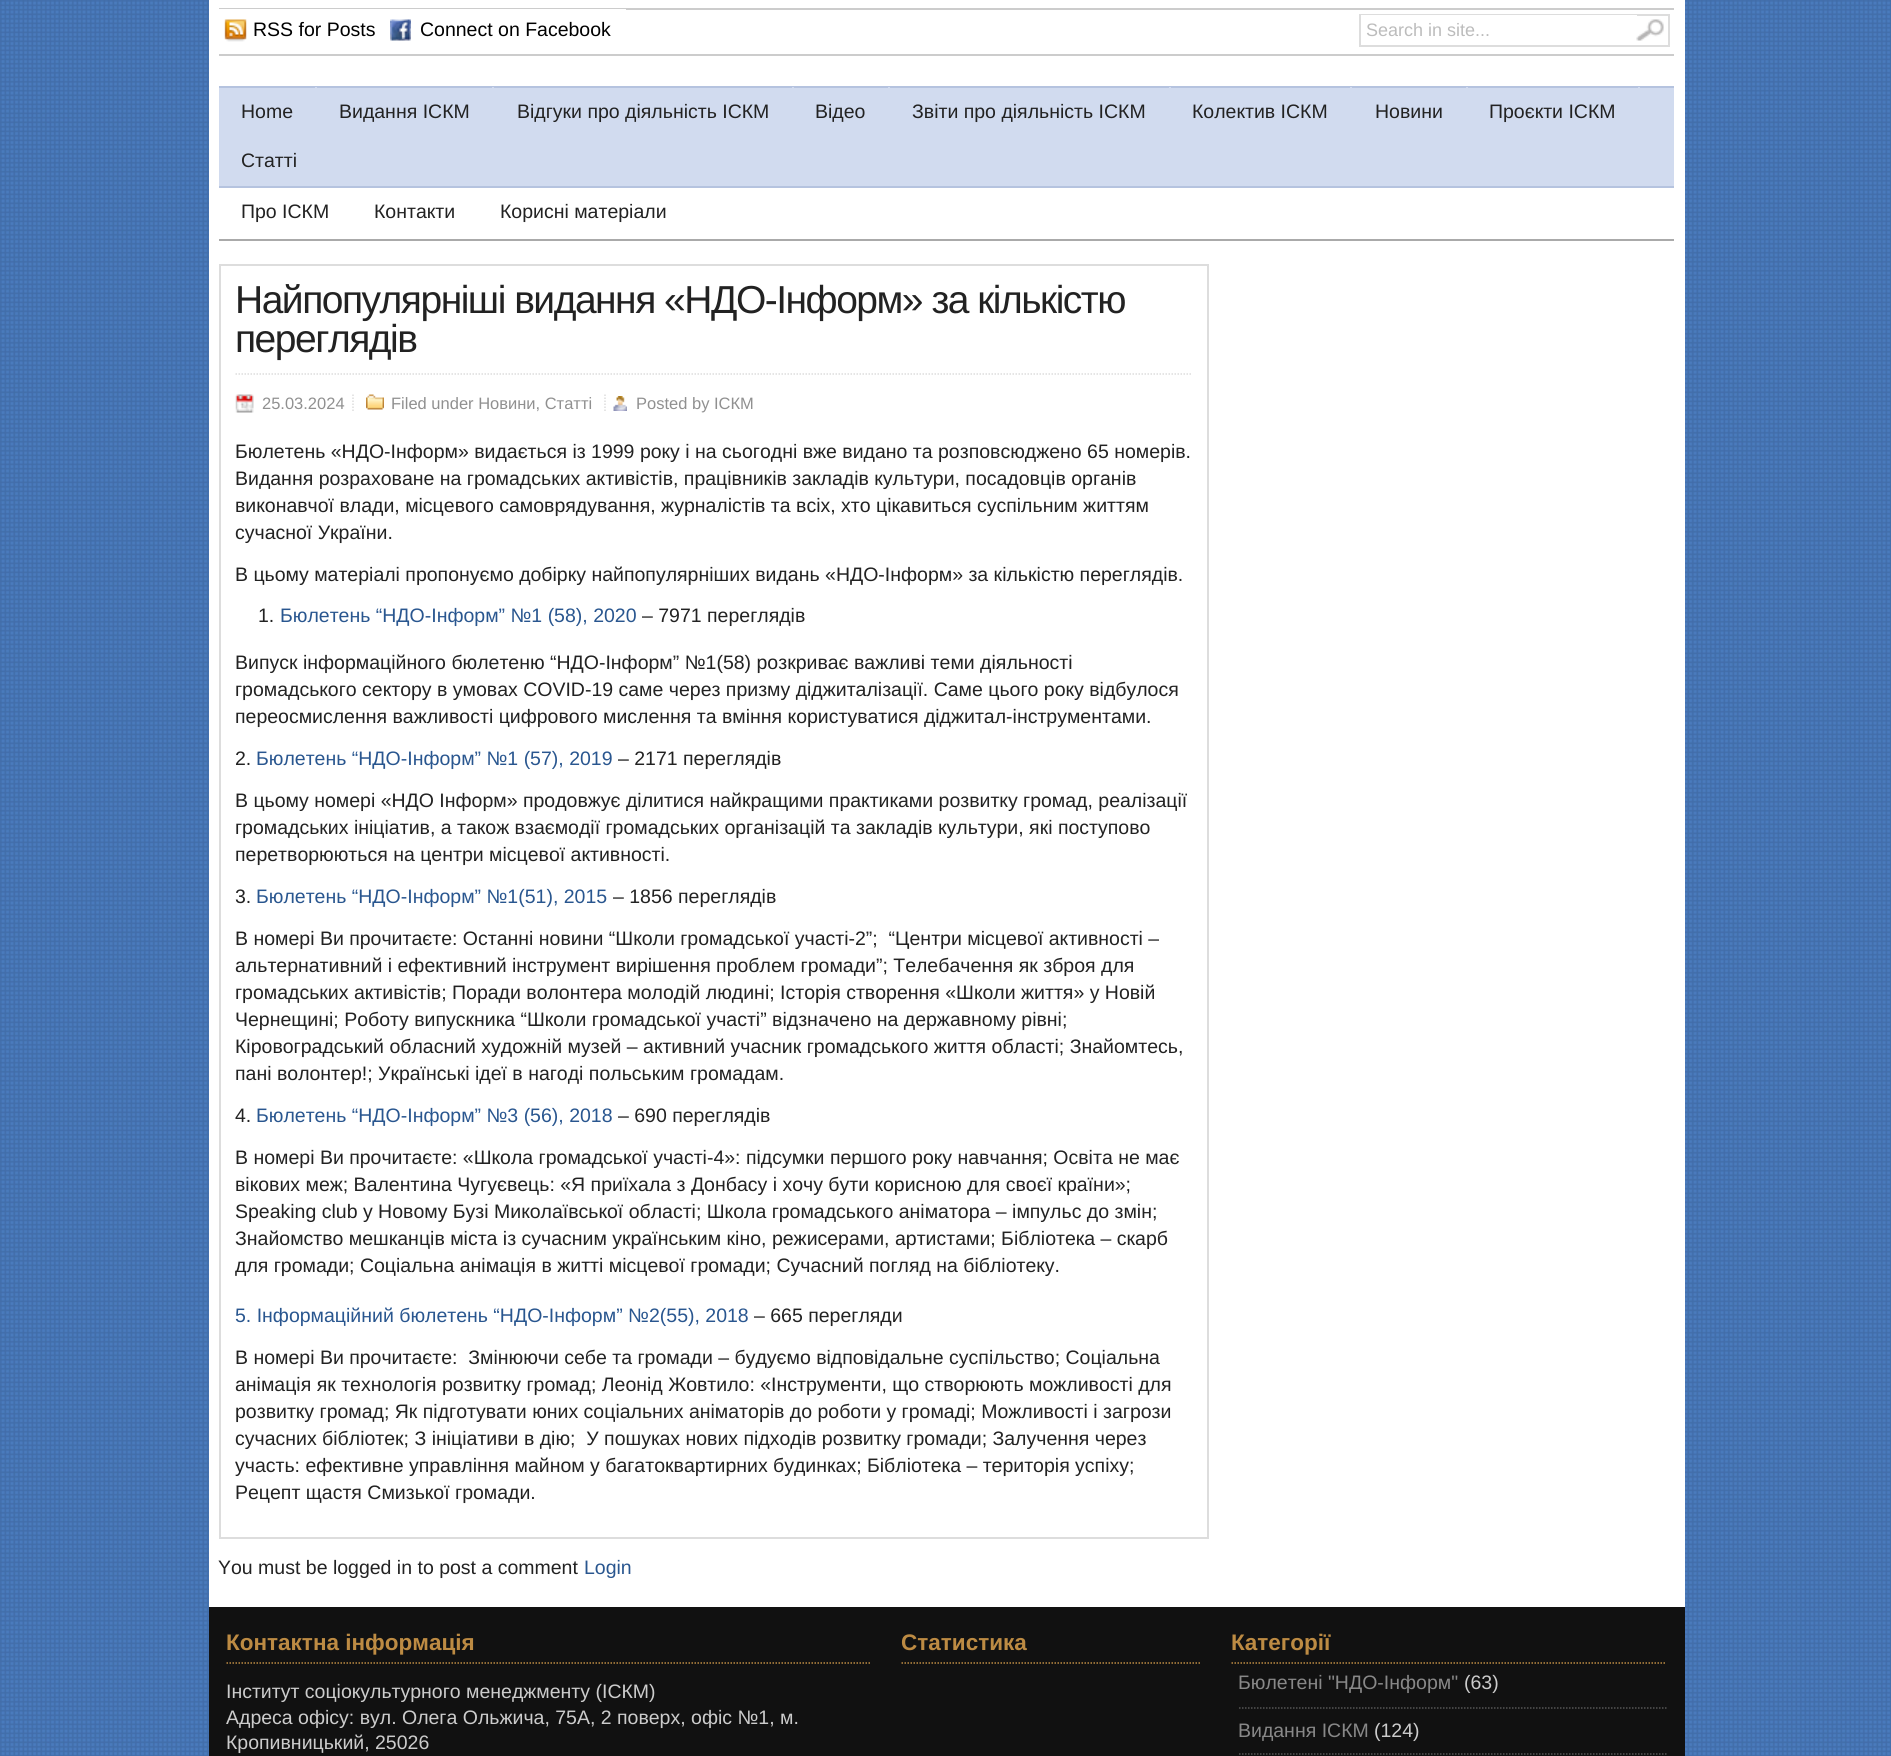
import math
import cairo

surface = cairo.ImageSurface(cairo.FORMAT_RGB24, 1891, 1756)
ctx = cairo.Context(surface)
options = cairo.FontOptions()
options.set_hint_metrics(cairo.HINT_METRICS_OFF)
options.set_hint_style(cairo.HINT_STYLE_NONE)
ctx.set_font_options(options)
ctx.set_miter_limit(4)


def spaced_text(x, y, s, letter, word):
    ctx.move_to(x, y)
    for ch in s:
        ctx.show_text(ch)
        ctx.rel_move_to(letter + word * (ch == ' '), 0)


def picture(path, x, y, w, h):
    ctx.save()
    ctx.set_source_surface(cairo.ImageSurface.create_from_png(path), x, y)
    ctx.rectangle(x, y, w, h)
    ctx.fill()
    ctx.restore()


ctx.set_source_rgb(1, 1, 1)
ctx.paint()
picture("img1.png", 0, 0, 1891, 1756)
ctx.set_source_rgb(1, 1, 1)
ctx.rectangle(209, 0, 1476, 1607)
ctx.fill()
ctx.set_source_rgb(0.8, 0.8, 0.8)
ctx.rectangle(219, 8, 1455, 2)
ctx.fill()
ctx.rectangle(219, 54, 1455, 2)
ctx.fill()
ctx.set_source_rgb(1, 1, 1)
ctx.rectangle(219, 9, 407, 1)
ctx.fill()
picture("img2.png", 224, 19, 23, 23)
ctx.select_font_face("Liberation Sans")
ctx.set_font_size(19.5)
ctx.set_source_rgb(0, 0, 0)
ctx.move_to(253, 36)
ctx.show_text("RSS for Posts")
picture("img3.png", 390, 19, 21, 22)
ctx.move_to(420, 36)
ctx.show_text("Connect on Facebook")
ctx.rectangle(1360, 15, 309, 31)
ctx.set_source_rgb(0.867, 0.867, 0.867)
ctx.stroke()
ctx.set_source_rgb(1, 1, 1)
ctx.rectangle(1361, 15, 276, 1)
ctx.fill()
ctx.set_font_size(18)
ctx.set_source_rgb(0.737, 0.737, 0.737)
ctx.move_to(1366, 36)
ctx.show_text("Search in site...")
picture("img4.png", 1636, 19, 28, 22)
ctx.set_source_rgb(0.82, 0.859, 0.937)
ctx.rectangle(219, 88, 1455, 98)
ctx.fill()
ctx.set_source_rgb(0.71, 0.765, 0.875)
ctx.rectangle(219, 86, 1455, 2)
ctx.fill()
ctx.rectangle(219, 186, 1455, 2)
ctx.fill()
ctx.set_source_rgb(0.82, 0.859, 0.937)
ctx.rectangle(315, 87, 2, 1)
ctx.fill()
ctx.set_font_size(19.5)
ctx.set_source_rgb(0.133, 0.133, 0.133)
ctx.move_to(241, 118)
ctx.show_text("Home")
ctx.set_source_rgb(0.82, 0.859, 0.937)
ctx.rectangle(492, 87, 2, 1)
ctx.fill()
ctx.set_source_rgb(0.133, 0.133, 0.133)
ctx.move_to(339, 118)
ctx.show_text("Видання ІСКМ")
ctx.set_source_rgb(0.82, 0.859, 0.937)
ctx.rectangle(792, 87, 2, 1)
ctx.fill()
ctx.set_source_rgb(0.133, 0.133, 0.133)
ctx.move_to(517, 118)
ctx.show_text("Відгуки про діяльність ІСКМ")
ctx.set_source_rgb(0.82, 0.859, 0.937)
ctx.rectangle(888, 87, 2, 1)
ctx.fill()
ctx.set_source_rgb(0.133, 0.133, 0.133)
ctx.move_to(815, 118)
ctx.show_text("Відео")
ctx.set_source_rgb(0.82, 0.859, 0.937)
ctx.rectangle(1169, 87, 2, 1)
ctx.fill()
ctx.set_source_rgb(0.133, 0.133, 0.133)
ctx.move_to(912, 118)
ctx.show_text("Звіти про діяльність ІСКМ")
ctx.set_source_rgb(0.82, 0.859, 0.937)
ctx.rectangle(1350, 87, 2, 1)
ctx.fill()
ctx.set_source_rgb(0.133, 0.133, 0.133)
ctx.move_to(1192, 118)
ctx.show_text("Колектив ІСКМ")
ctx.set_source_rgb(0.82, 0.859, 0.937)
ctx.rectangle(1466, 87, 2, 1)
ctx.fill()
ctx.set_source_rgb(0.133, 0.133, 0.133)
ctx.move_to(1375, 118)
ctx.show_text("Новини")
ctx.set_source_rgb(0.82, 0.859, 0.937)
ctx.rectangle(1638, 87, 2, 1)
ctx.fill()
ctx.set_source_rgb(0.133, 0.133, 0.133)
ctx.move_to(1489, 118)
ctx.show_text("Проєкти ІСКМ")
ctx.move_to(241, 167)
ctx.show_text("Статті")
ctx.set_source_rgb(0.667, 0.667, 0.667)
ctx.rectangle(219, 239, 1455, 2)
ctx.fill()
ctx.set_source_rgb(0.133, 0.133, 0.133)
ctx.move_to(241, 218)
ctx.show_text("Про ІСКМ")
ctx.move_to(374, 218)
ctx.show_text("Контакти")
ctx.move_to(500, 218)
ctx.show_text("Корисні матеріали")
ctx.rectangle(220, 265, 988, 1273)
ctx.set_source_rgb(0.867, 0.867, 0.867)
ctx.stroke()
ctx.new_path()
ctx.move_to(235.5, 374)
ctx.line_to(1192.5, 374)
ctx.set_line_width(1.5)
ctx.set_dash([1.5, 1.5])
ctx.stroke()
ctx.set_font_size(39)
ctx.set_source_rgb(0.133, 0.133, 0.133)
spaced_text(235, 313, "Найпопулярніші видання «НДО-Інформ» за кількістю", -1.5, 0)
spaced_text(235, 352, "переглядів", -1.5, 0)
picture("img5.png", 235, 394, 19, 19)
ctx.set_font_size(16.5)
ctx.set_source_rgb(0.565, 0.565, 0.565)
ctx.move_to(262, 409)
ctx.show_text("25.03.2024")
ctx.new_path()
ctx.move_to(353, 394.5)
ctx.line_to(353, 412.5)
ctx.set_source_rgb(0.867, 0.867, 0.867)
ctx.stroke()
picture("img6.png", 366, 394, 18, 16)
ctx.set_source_rgb(0.565, 0.565, 0.565)
ctx.move_to(391, 409)
ctx.show_text("Filed under Новини, Статті")
ctx.new_path()
ctx.move_to(605, 394.5)
ctx.line_to(605, 412.5)
ctx.set_source_rgb(0.867, 0.867, 0.867)
ctx.stroke()
picture("img7.png", 613, 396, 14, 15)
ctx.set_source_rgb(0.565, 0.565, 0.565)
ctx.move_to(636, 409)
ctx.show_text("Posted by ІСКМ")
ctx.set_font_size(19.5)
ctx.set_source_rgb(0.133, 0.133, 0.133)
ctx.move_to(235, 458)
ctx.show_text("Бюлетень «НДО-Інформ» видається із 1999 року і на сьогодні вже видано та розповсюджено 65 номерів.")
ctx.move_to(235, 485)
ctx.show_text("Видання розраховане на громадських активістів, працівників закладів культури, посадовців органів")
ctx.move_to(235, 512)
ctx.show_text("виконавчої влади, місцевого самоврядування, журналістів та всіх, хто цікавиться суспільним життям")
ctx.move_to(235, 539)
ctx.show_text("сучасної України.")
ctx.move_to(235, 581)
ctx.show_text("В цьому матеріалі пропонуємо добірку найпопулярніших видань «НДО-Інформ» за кількістю переглядів.")
ctx.move_to(258, 622)
ctx.show_text("1.")
ctx.set_source_rgb(0.161, 0.337, 0.561)
ctx.move_to(280, 622)
ctx.show_text("Бюлетень “НДО-Інформ” №1 (58), 2020")
ctx.set_source_rgb(0.133, 0.133, 0.133)
ctx.move_to(642, 622)
ctx.show_text("– 7971 переглядів")
ctx.move_to(235, 669)
ctx.show_text("Випуск інформаційного бюлетеню “НДО-Інформ” №1(58) розкриває важливі теми діяльності")
ctx.move_to(235, 696)
ctx.show_text("громадського сектору в умовах COVID-19 саме через призму діджиталізації. Саме цього року відбулося")
ctx.move_to(235, 723)
ctx.show_text("переосмислення важливості цифрового мислення та вміння користуватися діджитал-інструментами.")
ctx.move_to(235, 765)
ctx.show_text("2.")
ctx.set_source_rgb(0.161, 0.337, 0.561)
ctx.move_to(256, 765)
ctx.show_text("Бюлетень “НДО-Інформ” №1 (57), 2019")
ctx.set_source_rgb(0.133, 0.133, 0.133)
ctx.move_to(618, 765)
ctx.show_text("– 2171 переглядів")
ctx.move_to(235, 807)
ctx.show_text("В цьому номері «НДО Інформ» продовжує ділитися найкращими практиками розвитку громад, реалізації")
ctx.move_to(235, 834)
ctx.show_text("громадських ініціатив, а також взаємодії громадських організацій та закладів культури, які поступово")
ctx.move_to(235, 861)
ctx.show_text("перетворюються на центри місцевої активності.")
ctx.move_to(235, 903)
ctx.show_text("3.")
ctx.set_source_rgb(0.161, 0.337, 0.561)
ctx.move_to(256, 903)
ctx.show_text("Бюлетень “НДО-Інформ” №1(51), 2015")
ctx.set_source_rgb(0.133, 0.133, 0.133)
ctx.move_to(613, 903)
ctx.show_text("– 1856 переглядів")
ctx.move_to(235, 945)
ctx.show_text("В номері Ви прочитаєте: Останні новини “Школи громадської участі-2”;  “Центри місцевої активності –")
ctx.move_to(235, 972)
ctx.show_text("альтернативний і ефективний інструмент вирішення проблем громади”; Телебачення як зброя для")
ctx.move_to(235, 999)
ctx.show_text("громадських активістів; Поради волонтера молодій людині; Історія створення «Школи життя» у Новій")
ctx.move_to(235, 1026)
ctx.show_text("Чернещині; Роботу випускника “Школи громадської участі” відзначено на державному рівні;")
ctx.move_to(235, 1053)
ctx.show_text("Кіровоградський обласний художній музей – активний учасник громадського життя області; Знайомтесь,")
ctx.move_to(235, 1080)
ctx.show_text("пані волонтер!; Українські ідеї в нагоді польським громадам.")
ctx.move_to(235, 1122)
ctx.show_text("4.")
ctx.set_source_rgb(0.161, 0.337, 0.561)
ctx.move_to(256, 1122)
ctx.show_text("Бюлетень “НДО-Інформ” №3 (56), 2018")
ctx.set_source_rgb(0.133, 0.133, 0.133)
ctx.move_to(618, 1122)
ctx.show_text("– 690 переглядів")
ctx.move_to(235, 1164)
ctx.show_text("В номері Ви прочитаєте: «Школа громадської участі-4»: підсумки першого року навчання; Освіта не має")
ctx.move_to(235, 1191)
ctx.show_text("вікових меж; Валентина Чугуєвець: «Я приїхала з Донбасу і хочу бути корисною для своєї країни»;")
ctx.move_to(235, 1218)
ctx.show_text("Speaking club у Новому Бузі Миколаївської області; Школа громадського аніматора – імпульс до змін;")
ctx.move_to(235, 1245)
ctx.show_text("Знайомство мешканців міста із сучасним українським кіно, режисерами, артистами; Бібліотека – скарб")
ctx.move_to(235, 1272)
ctx.show_text("для громади; Соціальна анімація в житті місцевої громади; Сучасний погляд на бібліотеку.")
ctx.set_source_rgb(0.161, 0.337, 0.561)
ctx.move_to(235, 1322)
ctx.show_text("5. Інформаційний бюлетень “НДО-Інформ” №2(55), 2018")
ctx.set_source_rgb(0.133, 0.133, 0.133)
ctx.move_to(754, 1322)
ctx.show_text("– 665 перегляди")
ctx.move_to(235, 1364)
ctx.show_text("В номері Ви прочитаєте:  Змінюючи себе та громади – будуємо відповідальне суспільство; Соціальна")
ctx.move_to(235, 1391)
ctx.show_text("анімація як технологія розвитку громад; Леонід Жовтило: «Інструменти, що створюють можливості для")
ctx.move_to(235, 1418)
ctx.show_text("розвитку громад; Як підготувати юних соціальних аніматорів до роботи у громаді; Можливості і загрози")
ctx.move_to(235, 1445)
ctx.show_text("сучасних бібліотек; З ініціативи в дію;  У пошуках нових підходів розвитку громади; Залучення через")
ctx.move_to(235, 1472)
ctx.show_text("участь: ефективне управління майном у багатоквартирних будинках; Бібліотека – територія успіху;")
ctx.move_to(235, 1499)
ctx.show_text("Рецепт щастя Смизької громади.")
ctx.move_to(218, 1574)
ctx.show_text("You must be logged in to post a comment")
ctx.set_source_rgb(0.161, 0.337, 0.561)
ctx.move_to(584, 1574)
ctx.show_text("Login")
ctx.set_source_rgb(0.067, 0.067, 0.067)
ctx.rectangle(209, 1607, 1476, 149)
ctx.fill()
ctx.new_path()
ctx.move_to(226.5, 1663)
ctx.line_to(871.5, 1663)
ctx.set_source_rgb(0.741, 0.545, 0.263)
ctx.stroke()
ctx.select_font_face("Liberation Sans", cairo.FONT_SLANT_NORMAL, cairo.FONT_WEIGHT_BOLD)
ctx.set_font_size(22.5)
ctx.move_to(226, 1650)
ctx.show_text("Контактна інформація")
ctx.select_font_face("Liberation Sans")
ctx.set_font_size(19.5)
ctx.set_source_rgb(0.8, 0.8, 0.8)
ctx.move_to(226, 1698)
ctx.show_text("Інститут соціокультурного менеджменту (ІСКМ)")
ctx.move_to(226, 1724)
ctx.show_text("Адреса офісу: вул. Олега Ольжича, 75А, 2 поверх, офіс №1, м.")
ctx.move_to(226, 1749)
ctx.show_text("Кропивницький, 25026")
ctx.new_path()
ctx.move_to(901.5, 1663)
ctx.line_to(1201.5, 1663)
ctx.set_source_rgb(0.741, 0.545, 0.263)
ctx.stroke()
ctx.select_font_face("Liberation Sans", cairo.FONT_SLANT_NORMAL, cairo.FONT_WEIGHT_BOLD)
ctx.set_font_size(22.5)
ctx.move_to(901, 1650)
ctx.show_text("Статистика")
ctx.new_path()
ctx.move_to(1231.5, 1663)
ctx.line_to(1666.5, 1663)
ctx.stroke()
ctx.move_to(1231, 1650)
ctx.show_text("Категорії")
ctx.new_path()
ctx.move_to(1239, 1708)
ctx.line_to(1666.5, 1708)
ctx.set_source_rgb(0.333, 0.333, 0.333)
ctx.stroke()
ctx.select_font_face("Liberation Sans")
ctx.set_font_size(19.5)
ctx.set_source_rgb(0.533, 0.533, 0.533)
ctx.move_to(1238, 1689)
ctx.show_text("Бюлетені \"НДО-Інформ\"")
ctx.set_source_rgb(0.8, 0.8, 0.8)
ctx.move_to(1464, 1689)
ctx.show_text("(63)")
ctx.new_path()
ctx.move_to(1239, 1754)
ctx.line_to(1666.5, 1754)
ctx.set_source_rgb(0.333, 0.333, 0.333)
ctx.stroke()
ctx.set_source_rgb(0.533, 0.533, 0.533)
ctx.move_to(1238, 1737)
ctx.show_text("Видання ІСКМ")
ctx.set_source_rgb(0.8, 0.8, 0.8)
ctx.move_to(1374, 1737)
ctx.show_text("(124)")
surface.write_to_png("page.png")
